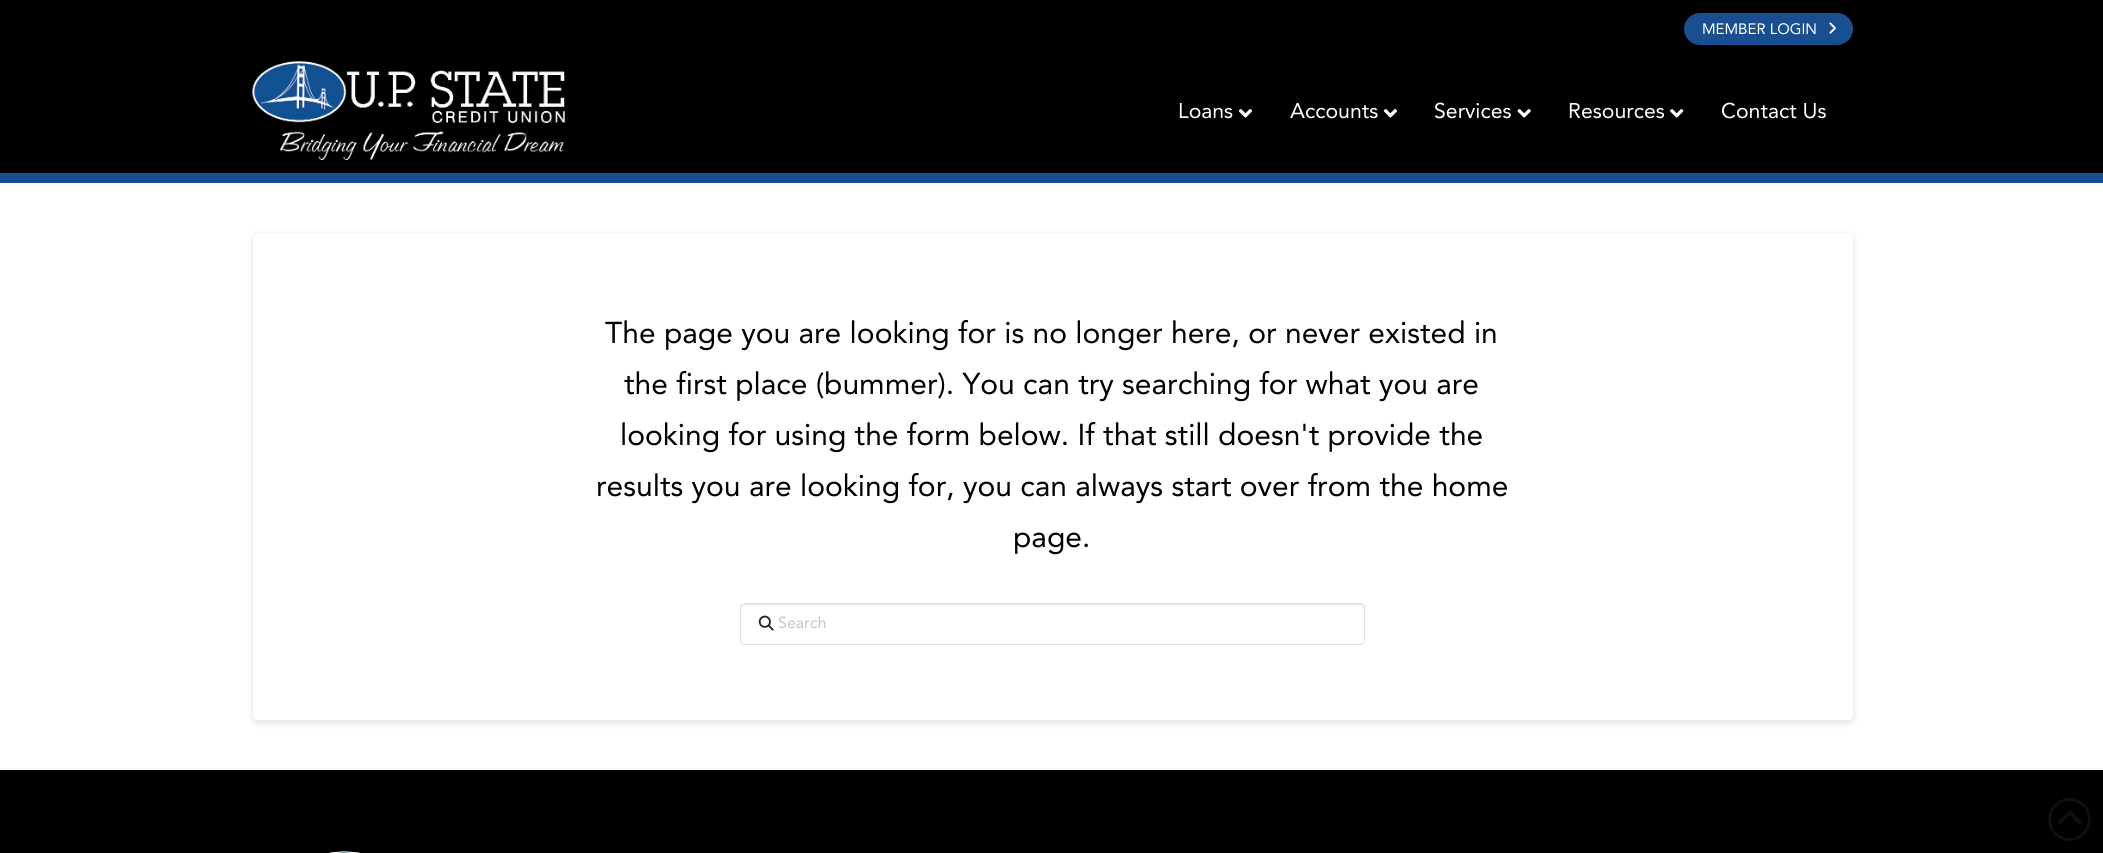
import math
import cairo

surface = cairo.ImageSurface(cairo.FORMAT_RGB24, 2103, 853)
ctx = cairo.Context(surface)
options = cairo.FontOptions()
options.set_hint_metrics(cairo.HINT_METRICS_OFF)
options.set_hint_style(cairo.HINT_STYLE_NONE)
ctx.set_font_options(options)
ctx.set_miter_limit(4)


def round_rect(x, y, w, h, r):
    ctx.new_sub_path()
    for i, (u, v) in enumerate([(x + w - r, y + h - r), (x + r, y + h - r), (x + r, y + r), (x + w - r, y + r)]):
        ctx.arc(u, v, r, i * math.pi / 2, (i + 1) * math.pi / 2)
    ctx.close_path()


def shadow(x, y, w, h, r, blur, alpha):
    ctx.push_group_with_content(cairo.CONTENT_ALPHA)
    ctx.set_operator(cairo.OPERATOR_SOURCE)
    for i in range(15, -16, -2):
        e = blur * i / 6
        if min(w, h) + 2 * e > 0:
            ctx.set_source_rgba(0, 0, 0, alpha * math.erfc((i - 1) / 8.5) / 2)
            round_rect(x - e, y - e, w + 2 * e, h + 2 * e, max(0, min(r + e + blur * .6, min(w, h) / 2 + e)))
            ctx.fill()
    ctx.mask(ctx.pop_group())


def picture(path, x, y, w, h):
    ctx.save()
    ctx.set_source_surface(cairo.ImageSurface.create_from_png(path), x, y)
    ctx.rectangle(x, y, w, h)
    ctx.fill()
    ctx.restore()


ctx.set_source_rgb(1, 1, 1)
ctx.paint()
ctx.set_source_rgb(0, 0, 0)
ctx.rectangle(0, 0, 2103, 173)
ctx.fill()
ctx.set_source_rgb(0.098, 0.31, 0.565)
round_rect(1684, 13, 169, 32, 16)
ctx.fill()
ctx.select_font_face("Avenir")
ctx.set_font_size(15)
ctx.set_source_rgb(1, 1, 1)
ctx.move_to(1702, 34)
ctx.show_text("MEMBER LOGIN")
picture("img1.png", 1829, 22, 7, 12)
ctx.set_source_rgb(0.098, 0.31, 0.565)
ctx.rectangle(0, 173, 2103, 10)
ctx.fill()
picture("img2.png", 252, 61, 313, 100)
ctx.set_font_size(21.25)
ctx.set_source_rgb(1, 1, 1)
ctx.move_to(1178, 118)
ctx.show_text("Loans")
picture("img3.png", 1238, 109, 14, 9)
ctx.move_to(1290, 118)
ctx.show_text("Accounts")
picture("img3.png", 1383, 109, 14, 9)
ctx.move_to(1434, 118)
ctx.show_text("Services")
picture("img4.png", 1517, 109, 14, 9)
ctx.move_to(1568, 118)
ctx.show_text("Resources")
picture("img5.png", 1670, 109, 14, 9)
ctx.move_to(1721, 118)
ctx.show_text("Contact Us")
ctx.set_source_rgb(0, 0, 0)
shadow(253, 235, 1600, 488, 5, 3.5, 0.13)
ctx.set_source_rgb(1, 1, 1)
round_rect(253, 233, 1600, 487, 5)
ctx.fill()
ctx.set_font_size(30)
ctx.set_source_rgb(0, 0, 0)
ctx.move_to(605, 343)
ctx.show_text("The page you are looking for is no longer here, or never existed in")
ctx.move_to(624, 394)
ctx.show_text("the first place (bummer). You can try searching for what you are")
ctx.move_to(620, 445)
ctx.show_text("looking for using the form below. If that still doesn't provide the")
ctx.move_to(596, 496)
ctx.show_text("results you are looking for, you can always start over from the home")
ctx.move_to(1013, 547)
ctx.show_text("page.")
ctx.set_source_rgb(0.925, 0.925, 0.925)
ctx.new_path()
ctx.move_to(745, 605)
ctx.line_to(1360, 605)
ctx.curve_to(1362, 605, 1364, 607, 1364, 609)
ctx.line_to(1364, 608)
ctx.curve_to(1364, 606, 1362, 604, 1360, 604)
ctx.line_to(745, 604)
ctx.curve_to(743, 604, 741, 606, 741, 608)
ctx.line_to(741, 609)
ctx.curve_to(741, 607, 743, 605, 745, 605)
ctx.close_path()
ctx.fill()
round_rect(740.5, 603.5, 624, 41, 4.5)
ctx.set_source_rgb(0.867, 0.867, 0.867)
ctx.set_line_width(1)
ctx.stroke()
picture("img6.png", 758, 615, 16, 16)
ctx.set_font_size(16)
ctx.set_source_rgb(0.773, 0.773, 0.773)
ctx.move_to(778, 628)
ctx.show_text("Search")
ctx.set_source_rgb(0, 0, 0)
ctx.rectangle(0, 770, 2103, 83)
ctx.fill()
picture("img7.png", 329, 851, 31, 2)
ctx.arc(2069.5, 819.5, 20, 0, 2 * math.pi)
ctx.set_source_rgb(0.059, 0.059, 0.059)
ctx.set_line_width(3)
ctx.stroke()
picture("img8.png", 2058, 810, 24, 14)
surface.write_to_png("page.png")
